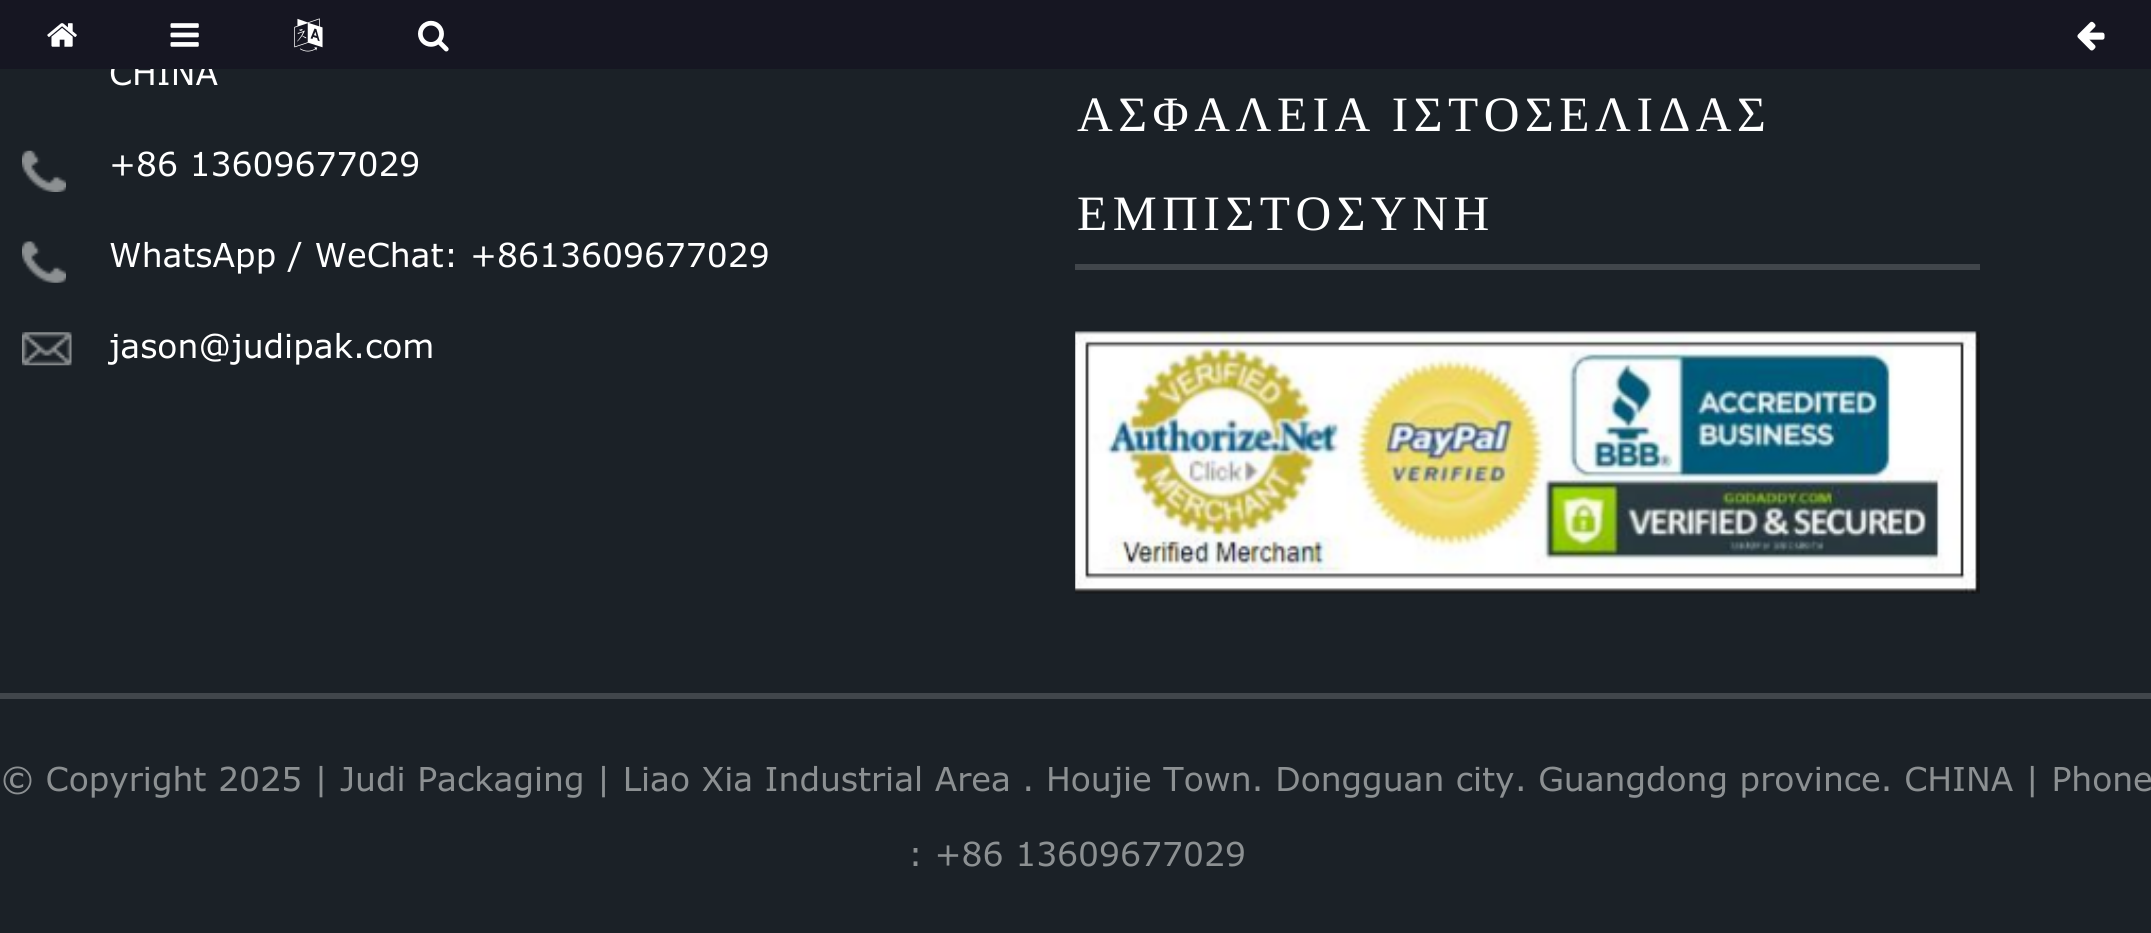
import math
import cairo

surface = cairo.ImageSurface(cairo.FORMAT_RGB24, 2151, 933)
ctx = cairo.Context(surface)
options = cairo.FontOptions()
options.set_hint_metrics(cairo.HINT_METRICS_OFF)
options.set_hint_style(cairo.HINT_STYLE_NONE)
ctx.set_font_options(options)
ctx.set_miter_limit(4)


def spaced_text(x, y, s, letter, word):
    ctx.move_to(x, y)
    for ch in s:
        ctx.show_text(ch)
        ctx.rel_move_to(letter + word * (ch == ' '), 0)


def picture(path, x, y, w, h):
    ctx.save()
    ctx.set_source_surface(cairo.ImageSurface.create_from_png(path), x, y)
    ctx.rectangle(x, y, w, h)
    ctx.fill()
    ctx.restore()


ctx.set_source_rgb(0.106, 0.129, 0.153)
ctx.paint()
ctx.select_font_face("Verdana")
ctx.set_font_size(33)
ctx.set_source_rgb(1, 1, 1)
ctx.move_to(109, 85)
ctx.show_text("CHINA")
ctx.set_source_rgb(0.086, 0.086, 0.133)
ctx.rectangle(0, 0, 2151, 69)
ctx.fill()
picture("img1.png", 47, 23, 30, 24)
picture("img2.png", 170, 23, 29, 24)
picture("img3.png", 294, 18, 29, 34)
picture("img4.png", 418, 20, 31, 32)
picture("img5.png", 2077, 21, 28, 30)
picture("img6.png", 22, 150, 44, 42)
ctx.set_source_rgb(1, 1, 1)
ctx.move_to(109, 176)
ctx.show_text("+86 13609677029")
picture("img7.png", 22, 241, 44, 42)
ctx.move_to(109, 267)
ctx.show_text("WhatsApp / WeChat: +8613609677029")
picture("img8.png", 22, 332, 50, 34)
ctx.move_to(109, 358)
ctx.show_text("jason@judipak.com")
ctx.set_source_rgb(0.255, 0.275, 0.294)
ctx.rectangle(1075, 264, 905, 6)
ctx.fill()
ctx.select_font_face("Liberation Serif")
ctx.set_font_size(49.5)
ctx.set_source_rgb(1, 1, 1)
spaced_text(1077, 131, "ΑΣΦΑΛΕΙΑ ΙΣΤΟΣΕΛΙΔΑΣ", 5.5, -2)
spaced_text(1077, 230, "ΕΜΠΙΣΤΟΣΥΝΗ", 5.5, 0)
picture("img9.png", 1075, 331, 905, 263)
ctx.set_source_rgb(0.255, 0.275, 0.294)
ctx.rectangle(0, 693, 2151, 6)
ctx.fill()
ctx.select_font_face("Verdana")
ctx.set_font_size(33)
ctx.set_source_rgb(0.549, 0.565, 0.573)
ctx.move_to(1, 791)
ctx.show_text("© Copyright 2025 | Judi Packaging | Liao Xia Industrial Area . Houjie Town. Dongguan city. Guangdong province. CHINA | Phone")
ctx.move_to(908, 866)
ctx.show_text(": +86 13609677029")
surface.write_to_png("page.png")
